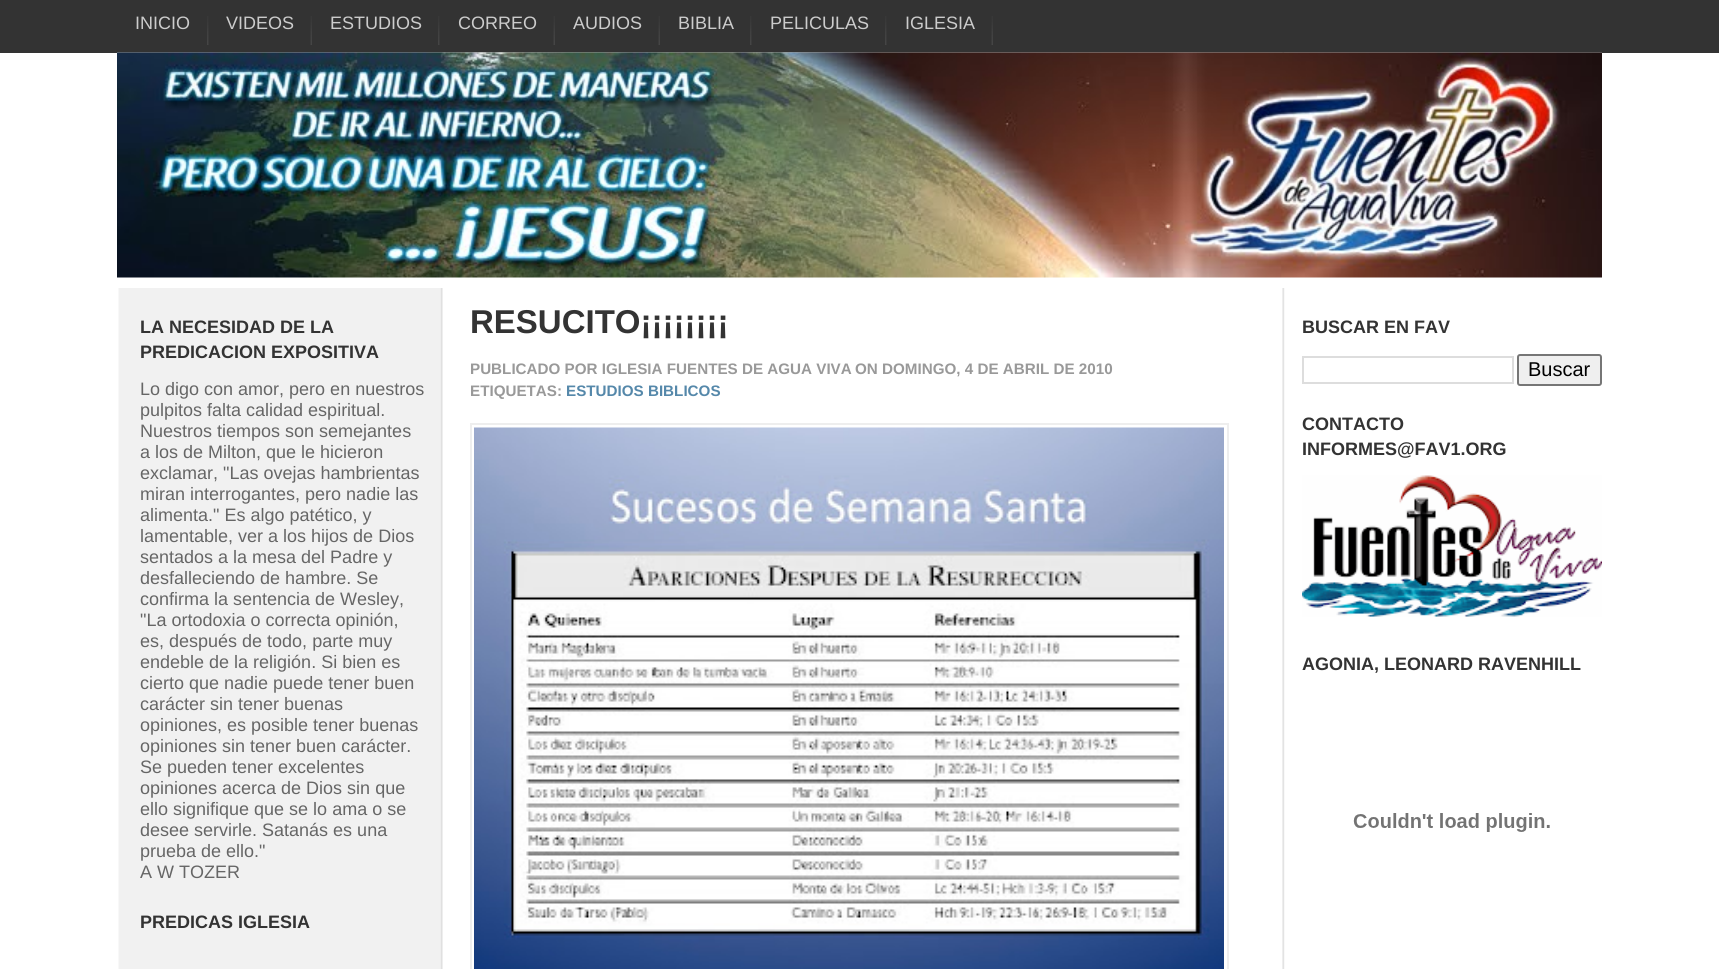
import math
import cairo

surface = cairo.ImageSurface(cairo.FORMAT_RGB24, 1719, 969)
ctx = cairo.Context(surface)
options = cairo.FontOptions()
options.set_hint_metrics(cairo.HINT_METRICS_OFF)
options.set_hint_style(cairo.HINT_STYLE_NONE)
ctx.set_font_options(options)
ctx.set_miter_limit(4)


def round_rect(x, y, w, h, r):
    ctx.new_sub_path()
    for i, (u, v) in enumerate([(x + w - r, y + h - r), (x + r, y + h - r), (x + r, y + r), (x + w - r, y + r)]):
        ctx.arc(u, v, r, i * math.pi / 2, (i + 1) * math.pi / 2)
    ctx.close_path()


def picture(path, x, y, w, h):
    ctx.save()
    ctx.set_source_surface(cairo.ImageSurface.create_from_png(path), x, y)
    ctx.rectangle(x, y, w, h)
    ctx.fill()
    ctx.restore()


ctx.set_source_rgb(1, 1, 1)
ctx.paint()
ctx.set_source_rgb(0.2, 0.2, 0.2)
ctx.rectangle(0, 0, 1719, 53)
ctx.fill()
picture("img1.png", 207, 16, 2, 29)
ctx.select_font_face("Liberation Sans")
ctx.set_font_size(18)
ctx.set_source_rgb(0.8, 0.8, 0.8)
ctx.move_to(135, 29)
ctx.show_text("INICIO")
picture("img2.png", 310, 16, 2, 29)
ctx.move_to(226, 29)
ctx.show_text("VIDEOS")
picture("img1.png", 438, 16, 2, 29)
ctx.move_to(330, 29)
ctx.show_text("ESTUDIOS")
picture("img2.png", 553, 16, 2, 29)
ctx.move_to(458, 29)
ctx.show_text("CORREO")
picture("img2.png", 658, 16, 2, 29)
ctx.move_to(573, 29)
ctx.show_text("AUDIOS")
picture("img1.png", 750, 16, 2, 29)
ctx.move_to(678, 29)
ctx.show_text("BIBLIA")
picture("img1.png", 885, 16, 2, 29)
ctx.move_to(770, 29)
ctx.show_text("PELICULAS")
picture("img2.png", 991, 16, 2, 29)
ctx.move_to(905, 29)
ctx.show_text("IGLESIA")
picture("img3.png", 117, 52, 1485, 917)
ctx.set_source_rgb(1, 1, 1)
ctx.rectangle(118, 277, 1167, 11)
ctx.fill()
picture("img4.png", 117, 52, 1485, 226)
ctx.select_font_face("Liberation Sans", cairo.FONT_SLANT_NORMAL, cairo.FONT_WEIGHT_BOLD)
ctx.set_source_rgb(0.2, 0.2, 0.2)
ctx.move_to(140, 333)
ctx.show_text("LA NECESIDAD DE LA")
ctx.move_to(140, 358)
ctx.show_text("PREDICACION EXPOSITIVA")
ctx.select_font_face("Liberation Sans")
ctx.set_source_rgb(0.4, 0.4, 0.4)
ctx.move_to(140, 395)
ctx.show_text("Lo digo con amor, pero en nuestros")
ctx.move_to(140, 416)
ctx.show_text("pulpitos falta calidad espiritual.")
ctx.move_to(140, 437)
ctx.show_text("Nuestros tiempos son semejantes")
ctx.move_to(140, 458)
ctx.show_text("a los de Milton, que le hicieron")
ctx.move_to(140, 479)
ctx.show_text("exclamar, \"Las ovejas hambrientas")
ctx.move_to(140, 500)
ctx.show_text("miran interrogantes, pero nadie las")
ctx.move_to(140, 521)
ctx.show_text("alimenta.\" Es algo patético, y")
ctx.move_to(140, 542)
ctx.show_text("lamentable, ver a los hijos de Dios")
ctx.move_to(140, 563)
ctx.show_text("sentados a la mesa del Padre y")
ctx.move_to(140, 584)
ctx.show_text("desfalleciendo de hambre. Se")
ctx.move_to(140, 605)
ctx.show_text("confirma la sentencia de Wesley,")
ctx.move_to(140, 626)
ctx.show_text("\"La ortodoxia o correcta opinión,")
ctx.move_to(140, 647)
ctx.show_text("es, después de todo, parte muy")
ctx.move_to(140, 668)
ctx.show_text("endeble de la religión. Si bien es")
ctx.move_to(140, 689)
ctx.show_text("cierto que nadie puede tener buen")
ctx.move_to(140, 710)
ctx.show_text("carácter sin tener buenas")
ctx.move_to(140, 731)
ctx.show_text("opiniones, es posible tener buenas")
ctx.move_to(140, 752)
ctx.show_text("opiniones sin tener buen carácter.")
ctx.move_to(140, 773)
ctx.show_text("Se pueden tener excelentes")
ctx.move_to(140, 794)
ctx.show_text("opiniones acerca de Dios sin que")
ctx.move_to(140, 815)
ctx.show_text("ello signifique que se lo ama o se")
ctx.move_to(140, 836)
ctx.show_text("desee servirle. Satanás es una")
ctx.move_to(140, 857)
ctx.show_text("prueba de ello.\"")
ctx.move_to(140, 878)
ctx.show_text("A W TOZER")
ctx.select_font_face("Liberation Sans", cairo.FONT_SLANT_NORMAL, cairo.FONT_WEIGHT_BOLD)
ctx.set_source_rgb(0.2, 0.2, 0.2)
ctx.move_to(140, 928)
ctx.show_text("PREDICAS IGLESIA")
ctx.set_font_size(33)
ctx.move_to(470, 333)
ctx.show_text("RESUCITO¡¡¡¡¡¡¡¡")
ctx.set_font_size(15.2)
ctx.set_source_rgb(0.6, 0.6, 0.6)
ctx.move_to(470, 374)
ctx.show_text("PUBLICADO POR IGLESIA FUENTES DE AGUA VIVA")
ctx.move_to(855, 374)
ctx.show_text("ON DOMINGO, 4 DE ABRIL DE 2010")
ctx.move_to(470, 396)
ctx.show_text("ETIQUETAS:")
ctx.set_source_rgb(0.333, 0.533, 0.667)
ctx.move_to(566, 396)
ctx.show_text("ESTUDIOS BIBLICOS")
ctx.rectangle(471, 424, 757, 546)
ctx.set_source_rgb(0.933, 0.933, 0.933)
ctx.stroke()
picture("img5.png", 474, 427, 750, 542)
ctx.set_font_size(18)
ctx.set_source_rgb(0.2, 0.2, 0.2)
ctx.move_to(1302, 333)
ctx.show_text("BUSCAR EN FAV")
ctx.rectangle(1303, 357, 210, 26)
ctx.set_source_rgb(0.867, 0.867, 0.867)
ctx.stroke()
ctx.set_source_rgb(0.937, 0.937, 0.937)
round_rect(1518, 355, 83, 30, 2)
ctx.fill_preserve()
ctx.set_source_rgb(0.463, 0.463, 0.463)
ctx.stroke()
ctx.select_font_face("Liberation Sans")
ctx.set_font_size(20)
ctx.set_source_rgb(0, 0, 0)
ctx.move_to(1528, 376)
ctx.show_text("Buscar")
ctx.select_font_face("Liberation Sans", cairo.FONT_SLANT_NORMAL, cairo.FONT_WEIGHT_BOLD)
ctx.set_font_size(18)
ctx.set_source_rgb(0.2, 0.2, 0.2)
ctx.move_to(1302, 430)
ctx.show_text("CONTACTO")
ctx.move_to(1302, 455)
ctx.show_text("INFORMES@FAV1.ORG")
picture("img6.png", 1302, 475, 300, 142)
ctx.move_to(1302, 670)
ctx.show_text("AGONIA, LEONARD RAVENHILL")
picture("img7.png", 1353, 813, 197, 19)
surface.write_to_png("page.png")
